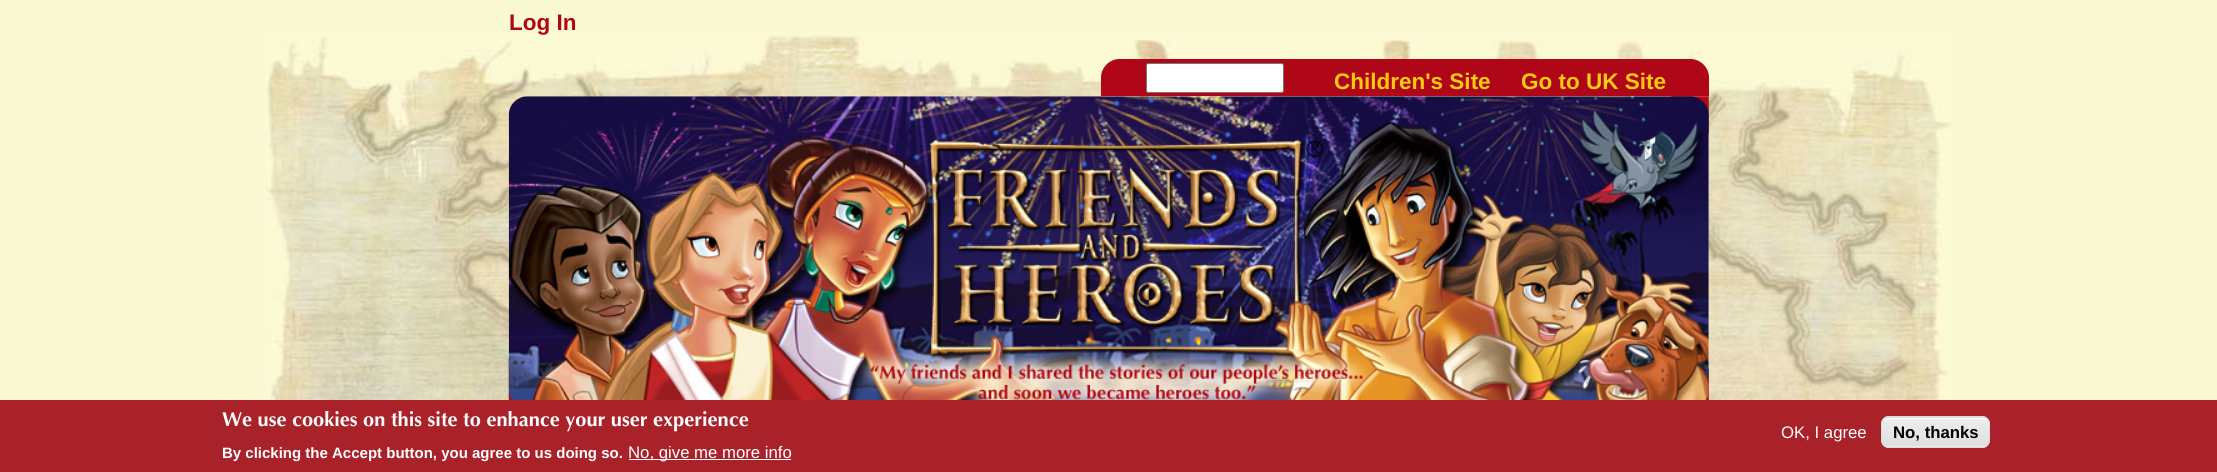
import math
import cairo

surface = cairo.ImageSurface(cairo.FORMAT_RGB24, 2217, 472)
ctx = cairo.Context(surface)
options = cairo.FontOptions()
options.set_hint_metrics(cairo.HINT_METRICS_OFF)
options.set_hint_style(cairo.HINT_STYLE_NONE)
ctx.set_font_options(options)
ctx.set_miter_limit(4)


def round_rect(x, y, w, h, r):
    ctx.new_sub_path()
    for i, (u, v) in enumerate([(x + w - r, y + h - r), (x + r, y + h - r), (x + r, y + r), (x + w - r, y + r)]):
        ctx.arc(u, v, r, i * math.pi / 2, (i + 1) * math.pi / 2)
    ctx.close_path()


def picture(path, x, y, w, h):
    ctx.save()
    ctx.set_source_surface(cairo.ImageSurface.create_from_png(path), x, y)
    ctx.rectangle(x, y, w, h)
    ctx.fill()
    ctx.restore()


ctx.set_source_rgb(0.984, 0.976, 0.827)
ctx.paint()
picture("img1.png", 266, 35, 1686, 365)
ctx.select_font_face("Liberation Sans", cairo.FONT_SLANT_NORMAL, cairo.FONT_WEIGHT_BOLD)
ctx.set_font_size(22.5)
ctx.set_source_rgb(0.686, 0.031, 0.09)
ctx.move_to(509, 30)
ctx.show_text("Log In")
ctx.new_path()
ctx.move_to(1119.5, 59)
ctx.line_to(1690.5, 59)
ctx.curve_to(1700.5, 59, 1709, 67.5, 1709, 77.5)
ctx.line_to(1709, 96)
ctx.line_to(1101, 96)
ctx.line_to(1101, 77.5)
ctx.curve_to(1101, 67.5, 1109.5, 59, 1119.5, 59)
ctx.close_path()
ctx.fill()
ctx.set_source_rgb(1, 1, 1)
round_rect(1146.5, 63.5, 137, 29, 2)
ctx.fill_preserve()
ctx.set_source_rgb(0.463, 0.463, 0.463)
ctx.set_line_width(1)
ctx.stroke()
ctx.set_source_rgb(0.992, 0.8, 0.067)
ctx.move_to(1334, 89)
ctx.show_text("Children's Site")
ctx.move_to(1521, 89)
ctx.show_text("Go to UK Site")
picture("img2.png", 508, 96, 1201, 304)
picture("img3.png", 508, 96, 1201, 304)
ctx.set_source_rgb(0.663, 0.133, 0.165)
ctx.rectangle(0, 400, 2217, 72)
ctx.fill()
ctx.select_font_face("Optima", cairo.FONT_SLANT_NORMAL, cairo.FONT_WEIGHT_BOLD)
ctx.set_font_size(20)
ctx.set_source_rgb(1, 1, 1)
ctx.move_to(222, 426)
ctx.show_text("We use cookies on this site to enhance your user experience")
ctx.select_font_face("Liberation Sans", cairo.FONT_SLANT_NORMAL, cairo.FONT_WEIGHT_BOLD)
ctx.set_font_size(15)
ctx.move_to(222, 458)
ctx.show_text("By clicking the Accept button, you agree to us doing so.")
ctx.rectangle(629, 459, 162, 1)
ctx.fill()
ctx.select_font_face("Liberation Sans")
ctx.set_font_size(16.75)
ctx.move_to(628, 458)
ctx.show_text("No, give me more info")
ctx.move_to(1781, 438)
ctx.show_text("OK, I agree")
ctx.save()
round_rect(1881, 416, 109, 32, 8)
ctx.clip()
gradient = cairo.LinearGradient(1936, 389, 1936, 418)
gradient.add_color_stop_rgba(0.05, 0.929, 0.929, 0.929, 1)
gradient.add_color_stop_rgba(1, 0.875, 0.875, 0.875, 1)
ctx.set_source(gradient)
ctx.rectangle(1881, 416, 109, 2)
ctx.fill()
gradient = cairo.LinearGradient(1936, 418, 1936, 446)
gradient.add_color_stop_rgba(0.05, 0.929, 0.929, 0.929, 1)
gradient.add_color_stop_rgba(1, 0.875, 0.875, 0.875, 1)
ctx.set_source(gradient)
ctx.rectangle(1881, 418, 109, 28)
ctx.fill()
gradient = cairo.LinearGradient(1936, 446, 1936, 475)
gradient.add_color_stop_rgba(0.05, 0.929, 0.929, 0.929, 1)
gradient.add_color_stop_rgba(1, 0.875, 0.875, 0.875, 1)
ctx.set_source(gradient)
ctx.rectangle(1881, 446, 109, 2)
ctx.fill()
ctx.restore()
ctx.new_path()
ctx.move_to(1889, 419)
ctx.line_to(1982, 419)
ctx.curve_to(1986, 419, 1989, 422, 1989, 425)
ctx.line_to(1989, 424)
ctx.curve_to(1989, 421, 1986, 418, 1983, 418)
ctx.line_to(1889, 418)
ctx.curve_to(1887, 418, 1885, 419, 1884, 421)
ctx.curve_to(1885, 420, 1887, 419, 1889, 419)
ctx.close_path()
ctx.fill()
round_rect(1881.5, 416.5, 108, 31, 7.5)
ctx.set_source_rgb(0.863, 0.863, 0.863)
ctx.stroke()
ctx.select_font_face("Liberation Sans", cairo.FONT_SLANT_NORMAL, cairo.FONT_WEIGHT_BOLD)
ctx.set_source_rgb(0, 0, 0)
ctx.move_to(1893, 438)
ctx.show_text("No, thanks")
surface.write_to_png("page.png")
